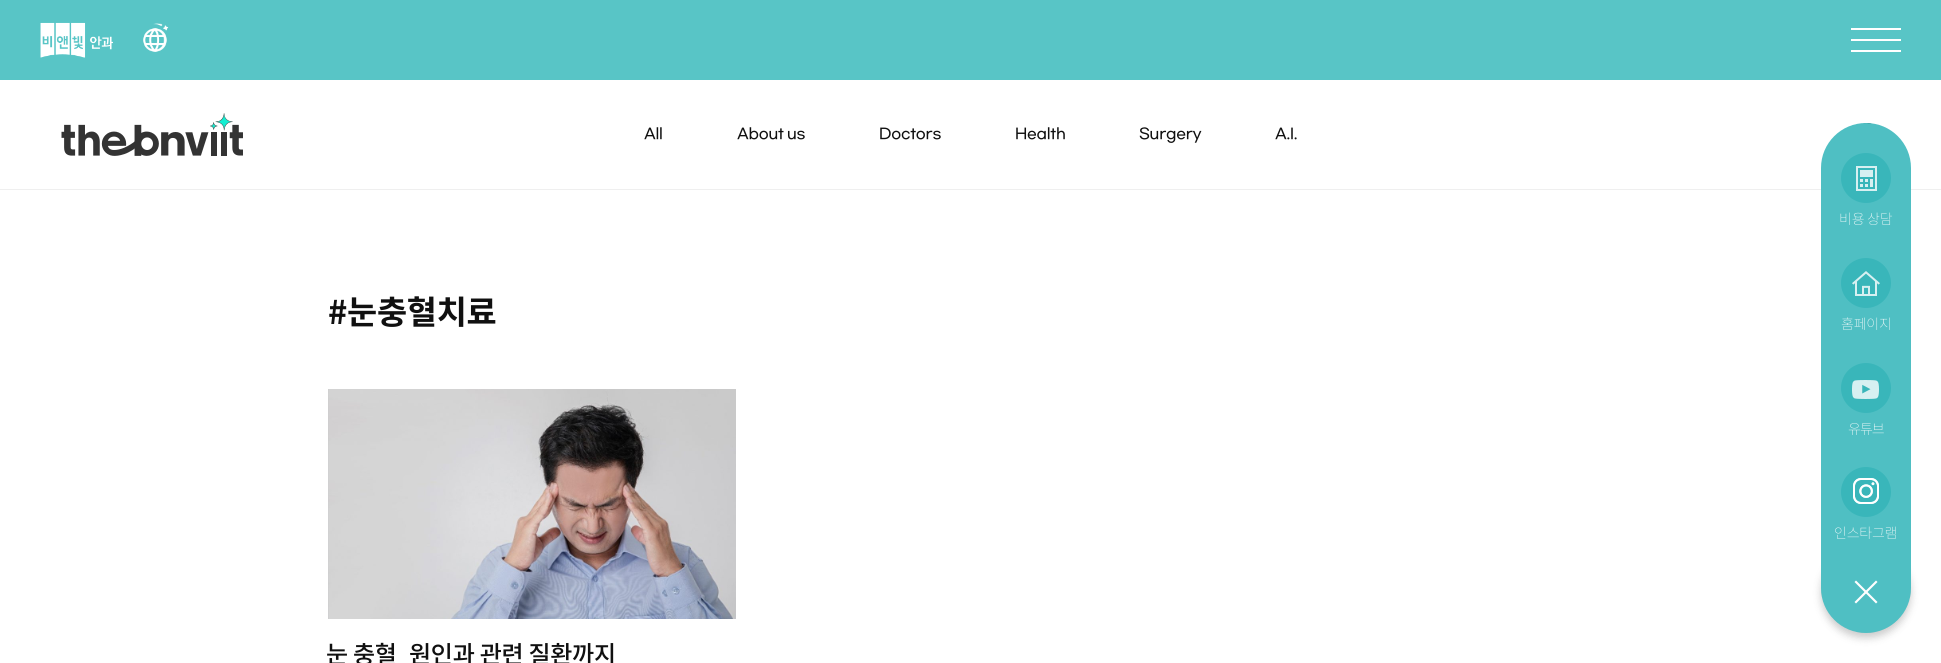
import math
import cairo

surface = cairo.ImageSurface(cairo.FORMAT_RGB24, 1941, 663)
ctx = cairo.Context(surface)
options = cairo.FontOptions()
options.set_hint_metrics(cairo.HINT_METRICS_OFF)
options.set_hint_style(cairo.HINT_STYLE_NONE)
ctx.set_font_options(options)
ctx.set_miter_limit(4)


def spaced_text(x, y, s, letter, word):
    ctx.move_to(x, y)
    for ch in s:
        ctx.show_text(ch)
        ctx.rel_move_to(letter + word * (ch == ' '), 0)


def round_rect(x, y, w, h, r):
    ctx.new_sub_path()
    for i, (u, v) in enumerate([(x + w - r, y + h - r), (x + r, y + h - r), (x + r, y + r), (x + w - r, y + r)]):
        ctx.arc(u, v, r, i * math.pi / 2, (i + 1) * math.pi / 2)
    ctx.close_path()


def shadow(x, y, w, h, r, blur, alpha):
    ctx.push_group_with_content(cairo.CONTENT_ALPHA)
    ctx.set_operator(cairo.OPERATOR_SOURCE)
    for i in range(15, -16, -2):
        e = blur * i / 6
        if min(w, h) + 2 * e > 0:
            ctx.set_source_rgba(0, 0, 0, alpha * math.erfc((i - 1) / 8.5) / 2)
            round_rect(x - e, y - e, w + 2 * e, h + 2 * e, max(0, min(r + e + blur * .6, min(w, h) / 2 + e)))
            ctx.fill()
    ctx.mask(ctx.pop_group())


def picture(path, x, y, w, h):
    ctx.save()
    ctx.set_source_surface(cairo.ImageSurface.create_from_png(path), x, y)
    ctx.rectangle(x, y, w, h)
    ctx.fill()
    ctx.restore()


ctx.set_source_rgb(1, 1, 1)
ctx.paint()
ctx.set_source_rgb(0.345, 0.773, 0.776)
ctx.rectangle(0, 0, 1941, 80)
ctx.fill()
picture("img1.png", 40, 22, 73, 36)
picture("img2.png", 143, 23, 26, 29)
ctx.set_source_rgb(1, 1, 1)
ctx.rectangle(1851, 28, 50, 2)
ctx.fill()
ctx.rectangle(1851, 39, 50, 2)
ctx.fill()
ctx.rectangle(1851, 50, 50, 2)
ctx.fill()
ctx.set_source_rgb(0.937, 0.937, 0.937)
ctx.rectangle(0, 189, 1941, 1)
ctx.fill()
picture("img3.png", 61, 113, 182, 43)
picture("img4.png", 1863, 123, 9, 1)
ctx.select_font_face("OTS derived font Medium")
ctx.set_font_size(14.5)
ctx.set_source_rgb(0.063, 0.063, 0.063)
spaced_text(644, 138, "All", -0.25, 0)
spaced_text(737, 138, "About", -0.25, 0)
spaced_text(787, 138, "us", -0.25, 0)
spaced_text(879, 138, "Doctors", -0.25, 0)
spaced_text(1015, 138, "Health", -0.25, 0)
spaced_text(1139, 138, "Surgery", -0.25, 0)
spaced_text(1275, 138, "A.I.", -0.25, 0)
ctx.select_font_face("Noto Sans KR", cairo.FONT_SLANT_NORMAL, cairo.FONT_WEIGHT_BOLD)
ctx.set_font_size(32.75)
spaced_text(328, 324, "#눈충혈치료", -0.25, 0)
picture("img5.png", 328, 389, 408, 230)
ctx.select_font_face("Noto Sans KR Medium")
ctx.set_font_size(24)
spaced_text(326, 663, "눈 충혈", -0.25, 0)
spaced_text(409, 663, "원인과 관련 질환까지", -0.25, 0)
ctx.set_source_rgb(0, 0, 0)
shadow(1821, 548, 90, 90, 45, 4, 0.2)
ctx.save()
round_rect(1821, 543, 90, 90, 45)
ctx.clip()
ctx.new_path()
ctx.move_to(1910, 632)
ctx.line_to(1908, 632.5)
ctx.line_to(1894, 632.5)
ctx.curve_to(1886.5, 632.5, 1824.5, 633.5, 1822.5, 632)
ctx.line_to(1822, 632)
ctx.set_source_rgb(0.733, 0.733, 0.733)
ctx.set_line_width(1)
ctx.stroke()
ctx.new_path()
ctx.move_to(1822, 632)
ctx.line_to(1821.5, 630)
ctx.line_to(1821.5, 560)
ctx.curve_to(1821.5, 540, 1818, 543.5, 1838, 543.5)
ctx.line_to(1894, 543.5)
ctx.curve_to(1914, 543.5, 1910.5, 540, 1910.5, 560)
ctx.line_to(1910.5, 630)
ctx.line_to(1910, 632)
ctx.set_source_rgb(0.8, 0.8, 0.8)
ctx.stroke()
ctx.restore()
ctx.set_source_rgb(0.31, 0.749, 0.765)
round_rect(1821, 123, 90, 510, 45)
ctx.fill()
ctx.set_source_rgb(0.224, 0.714, 0.729)
ctx.arc(1866, 178, 25, 0, 2 * math.pi)
ctx.fill()
picture("img6.png", 1856, 166, 21, 25)
ctx.select_font_face("Noto Sans KR Thin")
ctx.set_font_size(14)
ctx.set_source_rgb(1, 1, 1)
spaced_text(1839, 224, "비용 상담", -0.25, 0)
ctx.set_source_rgb(0.224, 0.714, 0.729)
ctx.new_path()
ctx.arc(1866, 283, 25, 0, 2 * math.pi)
ctx.fill()
picture("img7.png", 1852, 271, 28, 25)
ctx.set_source_rgb(1, 1, 1)
spaced_text(1841, 329, "홈페이지", -0.25, 0)
ctx.set_source_rgb(0.224, 0.714, 0.729)
ctx.new_path()
ctx.arc(1866, 388, 25, 0, 2 * math.pi)
ctx.fill()
picture("img8.png", 1852, 380, 27, 19)
ctx.set_source_rgb(1, 1, 1)
spaced_text(1848, 434, "유튜브", -1, 0)
ctx.set_source_rgb(0.224, 0.714, 0.729)
ctx.new_path()
ctx.arc(1866, 492, 25, 0, 2 * math.pi)
ctx.fill()
picture("img9.png", 1853, 478, 26, 26)
ctx.set_source_rgb(1, 1, 1)
spaced_text(1834, 538, "인스타그램", -0.25, 0)
ctx.new_path()
ctx.move_to(1856, 580.5)
ctx.line_to(1877.5, 602)
ctx.line_to(1876, 603.5)
ctx.line_to(1854.5, 582)
ctx.close_path()
ctx.fill()
ctx.new_path()
ctx.move_to(1854.5, 602)
ctx.line_to(1876, 580.5)
ctx.line_to(1877.5, 582)
ctx.line_to(1856, 603.5)
ctx.close_path()
ctx.fill()
surface.write_to_png("page.png")
